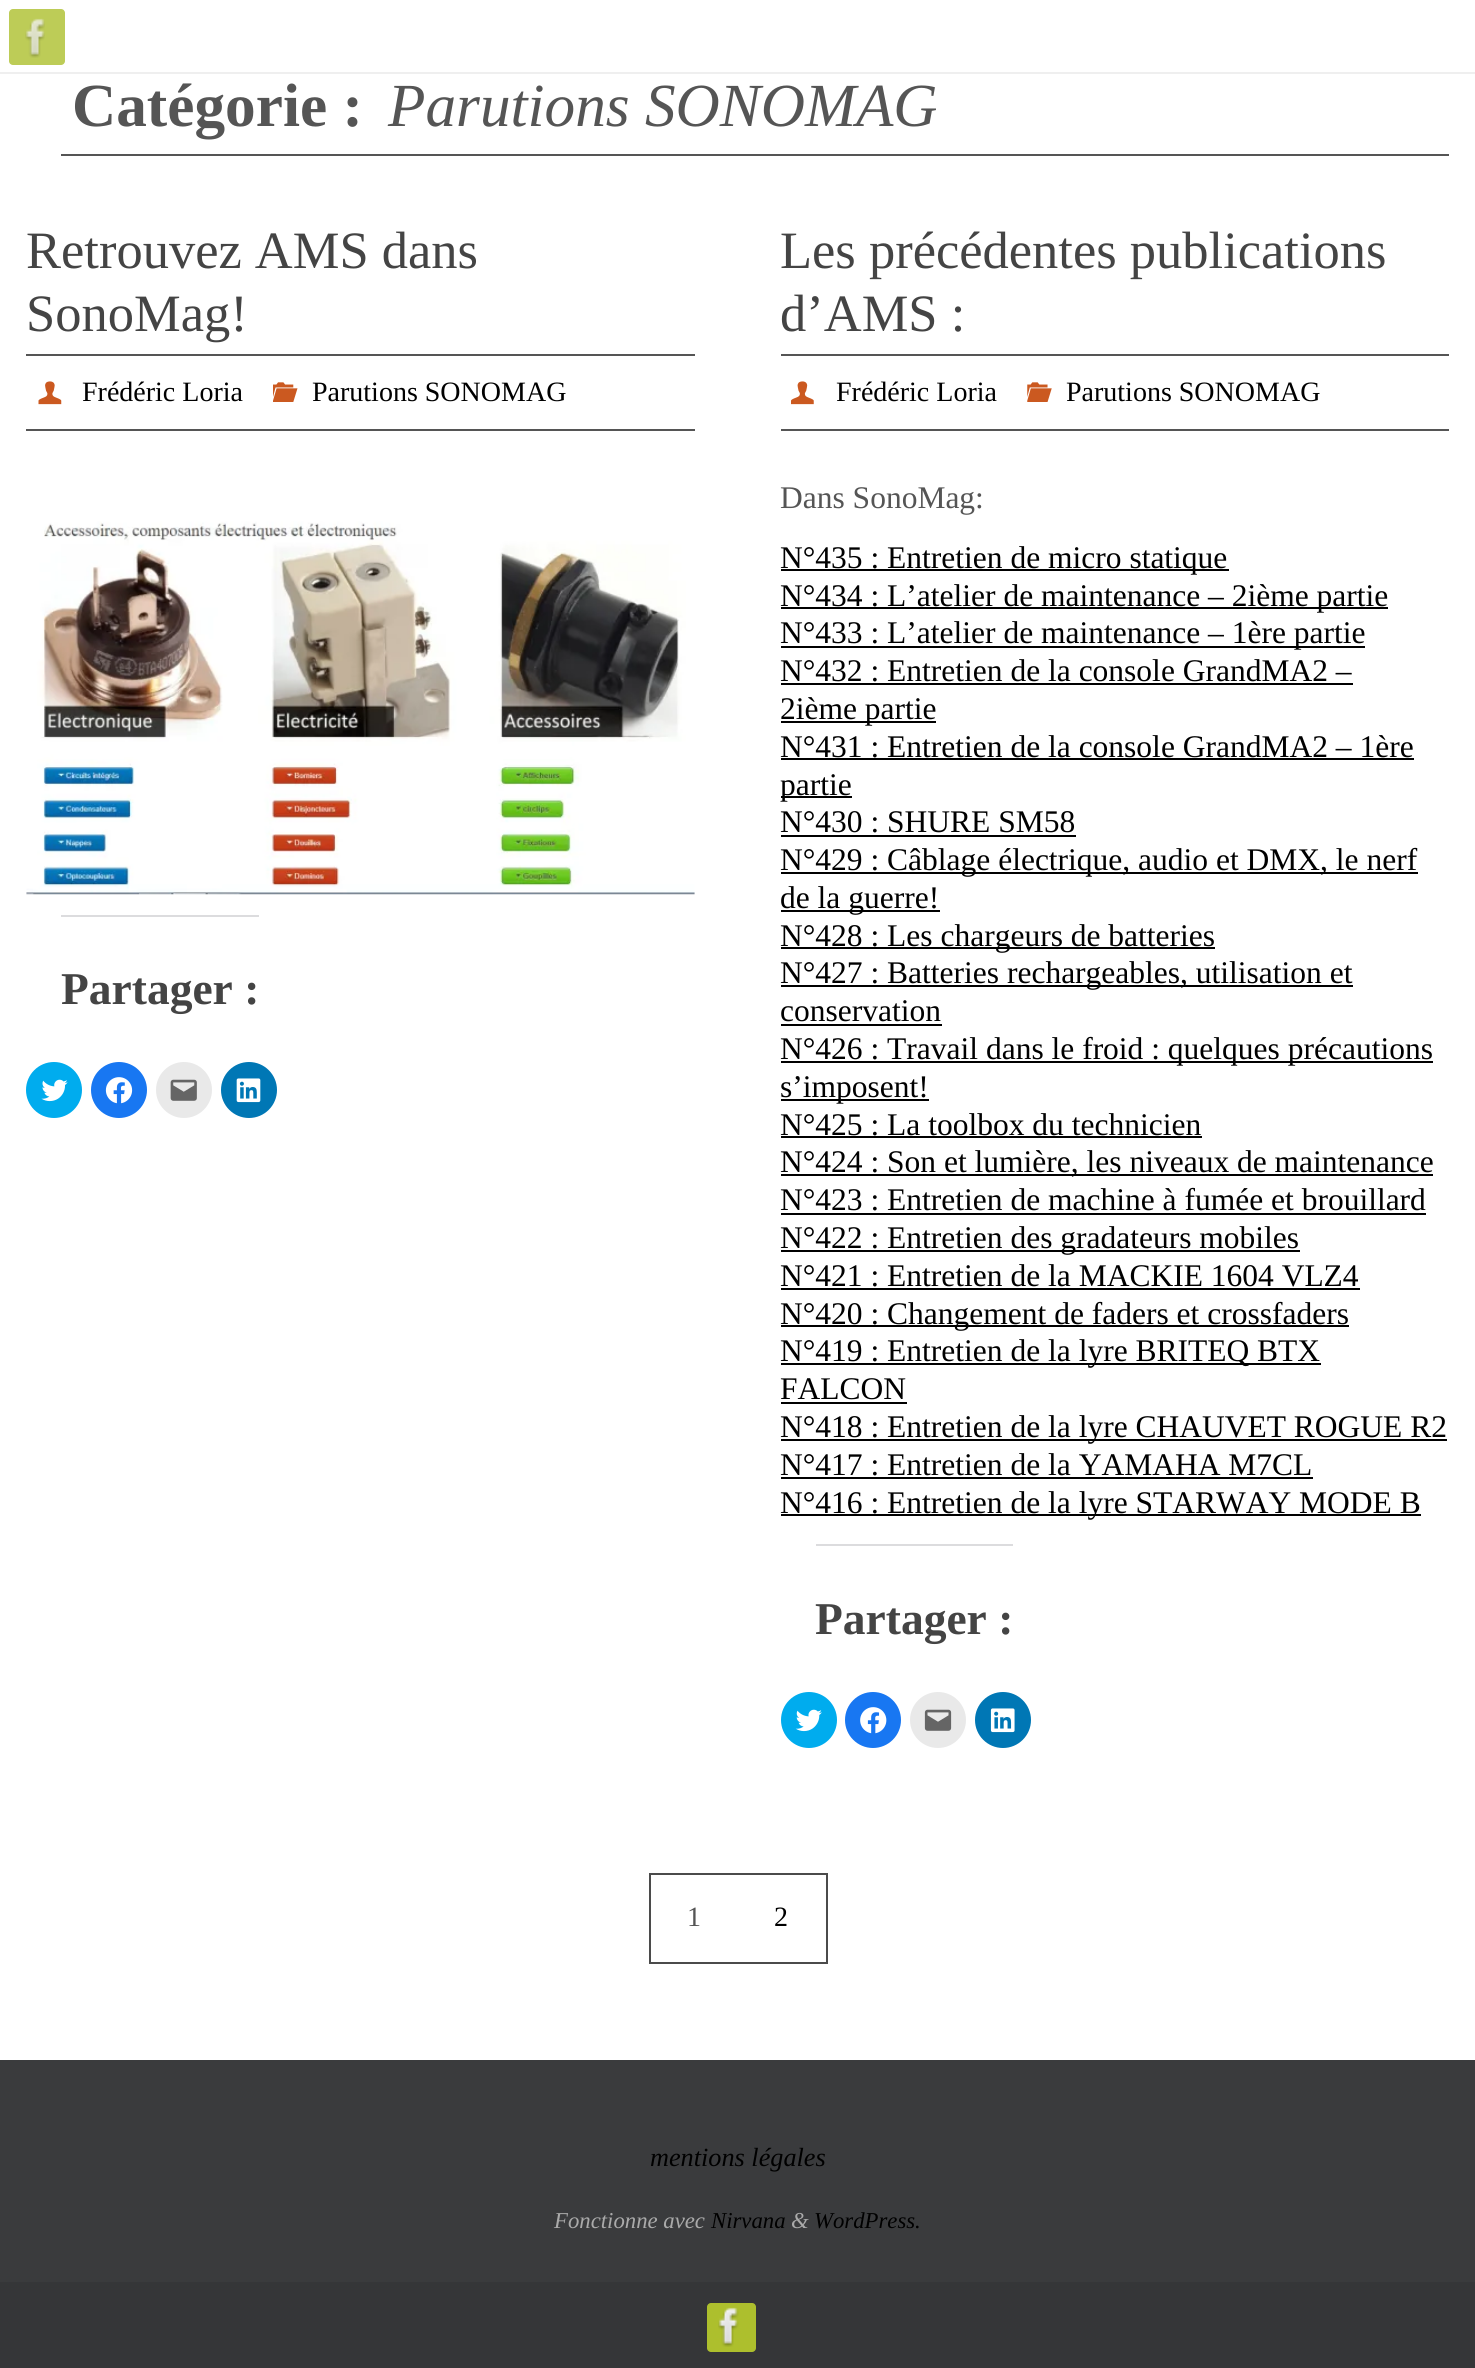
import math
import cairo

surface = cairo.ImageSurface(cairo.FORMAT_RGB24, 1475, 2368)
ctx = cairo.Context(surface)
options = cairo.FontOptions()
options.set_hint_metrics(cairo.HINT_METRICS_OFF)
options.set_hint_style(cairo.HINT_STYLE_NONE)
ctx.set_font_options(options)
ctx.set_miter_limit(4)


def round_rect(x, y, w, h, r):
    ctx.new_sub_path()
    for i, (u, v) in enumerate([(x + w - r, y + h - r), (x + r, y + h - r), (x + r, y + r), (x + w - r, y + r)]):
        ctx.arc(u, v, r, i * math.pi / 2, (i + 1) * math.pi / 2)
    ctx.close_path()


def picture(path, x, y, w, h):
    ctx.save()
    ctx.set_source_surface(cairo.ImageSurface.create_from_png(path), x, y)
    ctx.rectangle(x, y, w, h)
    ctx.fill()
    ctx.restore()


ctx.set_source_rgb(1, 1, 1)
ctx.paint()
ctx.set_source_rgb(0.937, 0.937, 0.937)
ctx.rectangle(0, 72, 1475, 2)
ctx.fill()
ctx.set_source_rgb(0.741, 0.8, 0.341)
round_rect(9, 9, 56, 56, 4)
ctx.fill()
picture("img1.png", 25, 18, 20, 40)
ctx.set_source_rgb(0.333, 0.333, 0.333)
ctx.rectangle(61, 154, 1388, 2)
ctx.fill()
ctx.select_font_face("Liberation Serif", cairo.FONT_SLANT_NORMAL, cairo.FONT_WEIGHT_BOLD)
ctx.set_font_size(61.25)
ctx.move_to(72, 126)
ctx.show_text("Catégorie :")
ctx.select_font_face("Liberation Serif", cairo.FONT_SLANT_ITALIC)
ctx.move_to(388, 126)
ctx.show_text("Parutions SONOMAG")
ctx.select_font_face("Liberation Serif")
ctx.set_font_size(52.5)
ctx.set_source_rgb(0.267, 0.267, 0.267)
ctx.move_to(26, 268)
ctx.show_text("Retrouvez AMS dans")
ctx.move_to(26, 331)
ctx.show_text("SonoMag!")
ctx.set_source_rgb(0.333, 0.333, 0.333)
ctx.rectangle(26, 354, 669, 2)
ctx.fill()
ctx.rectangle(26, 429, 669, 2)
ctx.fill()
picture("img2.png", 38, 381, 24, 24)
ctx.set_font_size(28)
ctx.set_source_rgb(0, 0, 0)
ctx.move_to(82, 401)
ctx.show_text("Frédéric Loria")
picture("img3.png", 273, 382, 25, 20)
ctx.move_to(312, 401)
ctx.show_text("Parutions SONOMAG")
picture("img4.png", 26, 521, 669, 374)
ctx.set_source_rgb(0.863, 0.863, 0.871)
ctx.rectangle(61, 915, 198, 2)
ctx.fill()
ctx.select_font_face("Liberation Serif", cairo.FONT_SLANT_NORMAL, cairo.FONT_WEIGHT_BOLD)
ctx.set_font_size(45.5)
ctx.set_source_rgb(0.267, 0.267, 0.267)
ctx.move_to(61, 1004)
ctx.show_text("Partager :")
ctx.set_source_rgb(0, 0.675, 0.933)
ctx.new_path()
ctx.arc(54, 1090, 28, 0, 2 * math.pi)
ctx.fill()
picture("img5.png", 41, 1079, 27, 23)
ctx.set_source_rgb(0.094, 0.467, 0.949)
ctx.arc(119, 1090, 28, 0, 2 * math.pi)
ctx.fill()
picture("img6.png", 105, 1077, 28, 27)
ctx.set_source_rgb(0.914, 0.914, 0.914)
ctx.arc(184, 1090, 28, 0, 2 * math.pi)
ctx.fill()
picture("img7.png", 170, 1079, 27, 22)
ctx.set_source_rgb(0, 0.467, 0.71)
ctx.arc(249, 1090, 28, 0, 2 * math.pi)
ctx.fill()
picture("img8.png", 236, 1078, 25, 25)
ctx.select_font_face("Liberation Serif")
ctx.set_font_size(52.5)
ctx.set_source_rgb(0.267, 0.267, 0.267)
ctx.move_to(780, 268)
ctx.show_text("Les précédentes publications")
ctx.move_to(780, 331)
ctx.show_text("d’AMS :")
ctx.set_source_rgb(0.333, 0.333, 0.333)
ctx.rectangle(781, 354, 668, 2)
ctx.fill()
ctx.rectangle(781, 429, 668, 2)
ctx.fill()
picture("img9.png", 791, 381, 23, 24)
ctx.set_font_size(28)
ctx.set_source_rgb(0, 0, 0)
ctx.move_to(836, 401)
ctx.show_text("Frédéric Loria")
picture("img10.png", 1027, 382, 25, 20)
ctx.move_to(1066, 401)
ctx.show_text("Parutions SONOMAG")
ctx.set_font_size(31.5)
ctx.set_source_rgb(0.333, 0.333, 0.333)
ctx.move_to(780, 508)
ctx.show_text("Dans SonoMag:")
ctx.set_source_rgb(0, 0, 0)
ctx.rectangle(781, 569, 448, 2)
ctx.fill()
ctx.move_to(780, 568)
ctx.show_text("N°435 : Entretien de micro statique")
ctx.rectangle(781, 607, 607, 2)
ctx.fill()
ctx.move_to(780, 606)
ctx.show_text("N°434 : L’atelier de maintenance – 2ième partie")
ctx.rectangle(781, 646, 584, 2)
ctx.fill()
ctx.move_to(780, 643)
ctx.show_text("N°433 : L’atelier de maintenance – 1ère partie")
ctx.move_to(780, 681)
ctx.show_text("N°432 : Entretien de la console GrandMA2 –")
ctx.rectangle(781, 683, 572, 2)
ctx.fill()
ctx.rectangle(781, 721, 155, 2)
ctx.fill()
ctx.move_to(780, 719)
ctx.show_text("2ième partie")
ctx.move_to(780, 757)
ctx.show_text("N°431 : Entretien de la console GrandMA2 – 1ère")
ctx.rectangle(781, 758, 633, 2)
ctx.fill()
ctx.rectangle(781, 796, 71, 2)
ctx.fill()
ctx.move_to(780, 795)
ctx.show_text("partie")
ctx.move_to(780, 832)
ctx.show_text("N°430 : SHURE SM58")
ctx.rectangle(781, 835, 295, 2)
ctx.fill()
ctx.rectangle(781, 872, 637, 2)
ctx.fill()
ctx.move_to(780, 870)
ctx.show_text("N°429 : Câblage électrique, audio et DMX, le nerf")
ctx.rectangle(781, 910, 159, 2)
ctx.fill()
ctx.move_to(780, 908)
ctx.show_text("de la guerre!")
ctx.rectangle(781, 947, 434, 2)
ctx.fill()
ctx.move_to(780, 946)
ctx.show_text("N°428 : Les chargeurs de batteries")
ctx.rectangle(781, 985, 572, 2)
ctx.fill()
ctx.move_to(780, 983)
ctx.show_text("N°427 : Batteries rechargeables, utilisation et")
ctx.move_to(780, 1021)
ctx.show_text("conservation")
ctx.rectangle(781, 1024, 161, 2)
ctx.fill()
ctx.rectangle(781, 1061, 652, 2)
ctx.fill()
ctx.move_to(780, 1059)
ctx.show_text("N°426 : Travail dans le froid : quelques précautions")
ctx.rectangle(781, 1099, 148, 2)
ctx.fill()
ctx.move_to(780, 1097)
ctx.show_text("s’imposent!")
ctx.move_to(780, 1135)
ctx.show_text("N°425 : La toolbox du technicien")
ctx.rectangle(781, 1136, 421, 2)
ctx.fill()
ctx.rectangle(781, 1174, 652, 2)
ctx.fill()
ctx.move_to(780, 1172)
ctx.show_text("N°424 : Son et lumière, les niveaux de maintenance")
ctx.move_to(780, 1210)
ctx.show_text("N°423 : Entretien de machine à fumée et brouillard")
ctx.rectangle(781, 1213, 645, 2)
ctx.fill()
ctx.rectangle(781, 1250, 519, 2)
ctx.fill()
ctx.move_to(780, 1248)
ctx.show_text("N°422 : Entretien des gradateurs mobiles")
ctx.move_to(780, 1286)
ctx.show_text("N°421 : Entretien de la MACKIE 1604 VLZ4")
ctx.rectangle(781, 1288, 579, 2)
ctx.fill()
ctx.rectangle(781, 1325, 568, 2)
ctx.fill()
ctx.move_to(780, 1324)
ctx.show_text("N°420 : Changement de faders et crossfaders")
ctx.rectangle(781, 1363, 540, 2)
ctx.fill()
ctx.move_to(780, 1361)
ctx.show_text("N°419 : Entretien de la lyre BRITEQ BTX")
ctx.move_to(780, 1399)
ctx.show_text("FALCON")
ctx.rectangle(781, 1402, 126, 2)
ctx.fill()
ctx.rectangle(781, 1439, 666, 2)
ctx.fill()
ctx.move_to(780, 1437)
ctx.show_text("N°418 : Entretien de la lyre CHAUVET ROGUE R2")
ctx.move_to(780, 1475)
ctx.show_text("N°417 : Entretien de la YAMAHA M7CL")
ctx.rectangle(781, 1477, 532, 2)
ctx.fill()
ctx.rectangle(781, 1514, 640, 2)
ctx.fill()
ctx.move_to(780, 1513)
ctx.show_text("N°416 : Entretien de la lyre STARWAY MODE B")
ctx.set_source_rgb(0.863, 0.863, 0.871)
ctx.rectangle(816, 1544, 197, 2)
ctx.fill()
ctx.select_font_face("Liberation Serif", cairo.FONT_SLANT_NORMAL, cairo.FONT_WEIGHT_BOLD)
ctx.set_font_size(45.5)
ctx.set_source_rgb(0.267, 0.267, 0.267)
ctx.move_to(815, 1634)
ctx.show_text("Partager :")
ctx.set_source_rgb(0, 0.675, 0.933)
ctx.new_path()
ctx.arc(809, 1720, 28, 0, 2 * math.pi)
ctx.fill()
picture("img11.png", 795, 1709, 27, 23)
ctx.set_source_rgb(0.094, 0.467, 0.949)
ctx.arc(873, 1720, 28, 0, 2 * math.pi)
ctx.fill()
picture("img12.png", 860, 1707, 27, 27)
ctx.set_source_rgb(0.914, 0.914, 0.914)
ctx.arc(938, 1720, 28, 0, 2 * math.pi)
ctx.fill()
picture("img13.png", 924, 1709, 28, 22)
ctx.set_source_rgb(0, 0.467, 0.71)
ctx.arc(1003, 1720, 28, 0, 2 * math.pi)
ctx.fill()
picture("img14.png", 990, 1708, 25, 25)
ctx.rectangle(650, 1874, 177, 89)
ctx.set_source_rgb(0.294, 0.294, 0.294)
ctx.stroke()
ctx.select_font_face("Liberation Serif")
ctx.set_font_size(28)
ctx.set_source_rgb(0.333, 0.333, 0.333)
ctx.move_to(687, 1926)
ctx.show_text("1")
ctx.set_source_rgb(0, 0, 0)
ctx.move_to(774, 1926)
ctx.show_text("2")
ctx.set_source_rgb(0.227, 0.231, 0.239)
ctx.rectangle(0, 2060, 1475, 222)
ctx.fill()
ctx.select_font_face("Liberation Serif", cairo.FONT_SLANT_ITALIC)
ctx.set_font_size(26.25)
ctx.set_source_rgb(0, 0, 0)
ctx.move_to(650, 2166)
ctx.show_text("mentions légales")
ctx.set_font_size(22.75)
ctx.set_source_rgb(0.667, 0.667, 0.667)
ctx.move_to(554, 2228)
ctx.show_text("Fonctionne avec")
ctx.set_source_rgb(0, 0, 0)
ctx.move_to(711, 2228)
ctx.show_text("Nirvana")
ctx.set_source_rgb(0.667, 0.667, 0.667)
ctx.move_to(791, 2228)
ctx.show_text("&")
ctx.set_source_rgb(0, 0, 0)
ctx.move_to(814, 2228)
ctx.show_text("WordPress.")
ctx.set_source_rgb(0.208, 0.212, 0.22)
ctx.rectangle(0, 2282, 1475, 86)
ctx.fill()
ctx.set_source_rgb(0.678, 0.749, 0.176)
round_rect(707, 2303, 49, 49, 4)
ctx.fill()
picture("img15.png", 718, 2307, 21, 40)
surface.write_to_png("page.png")
